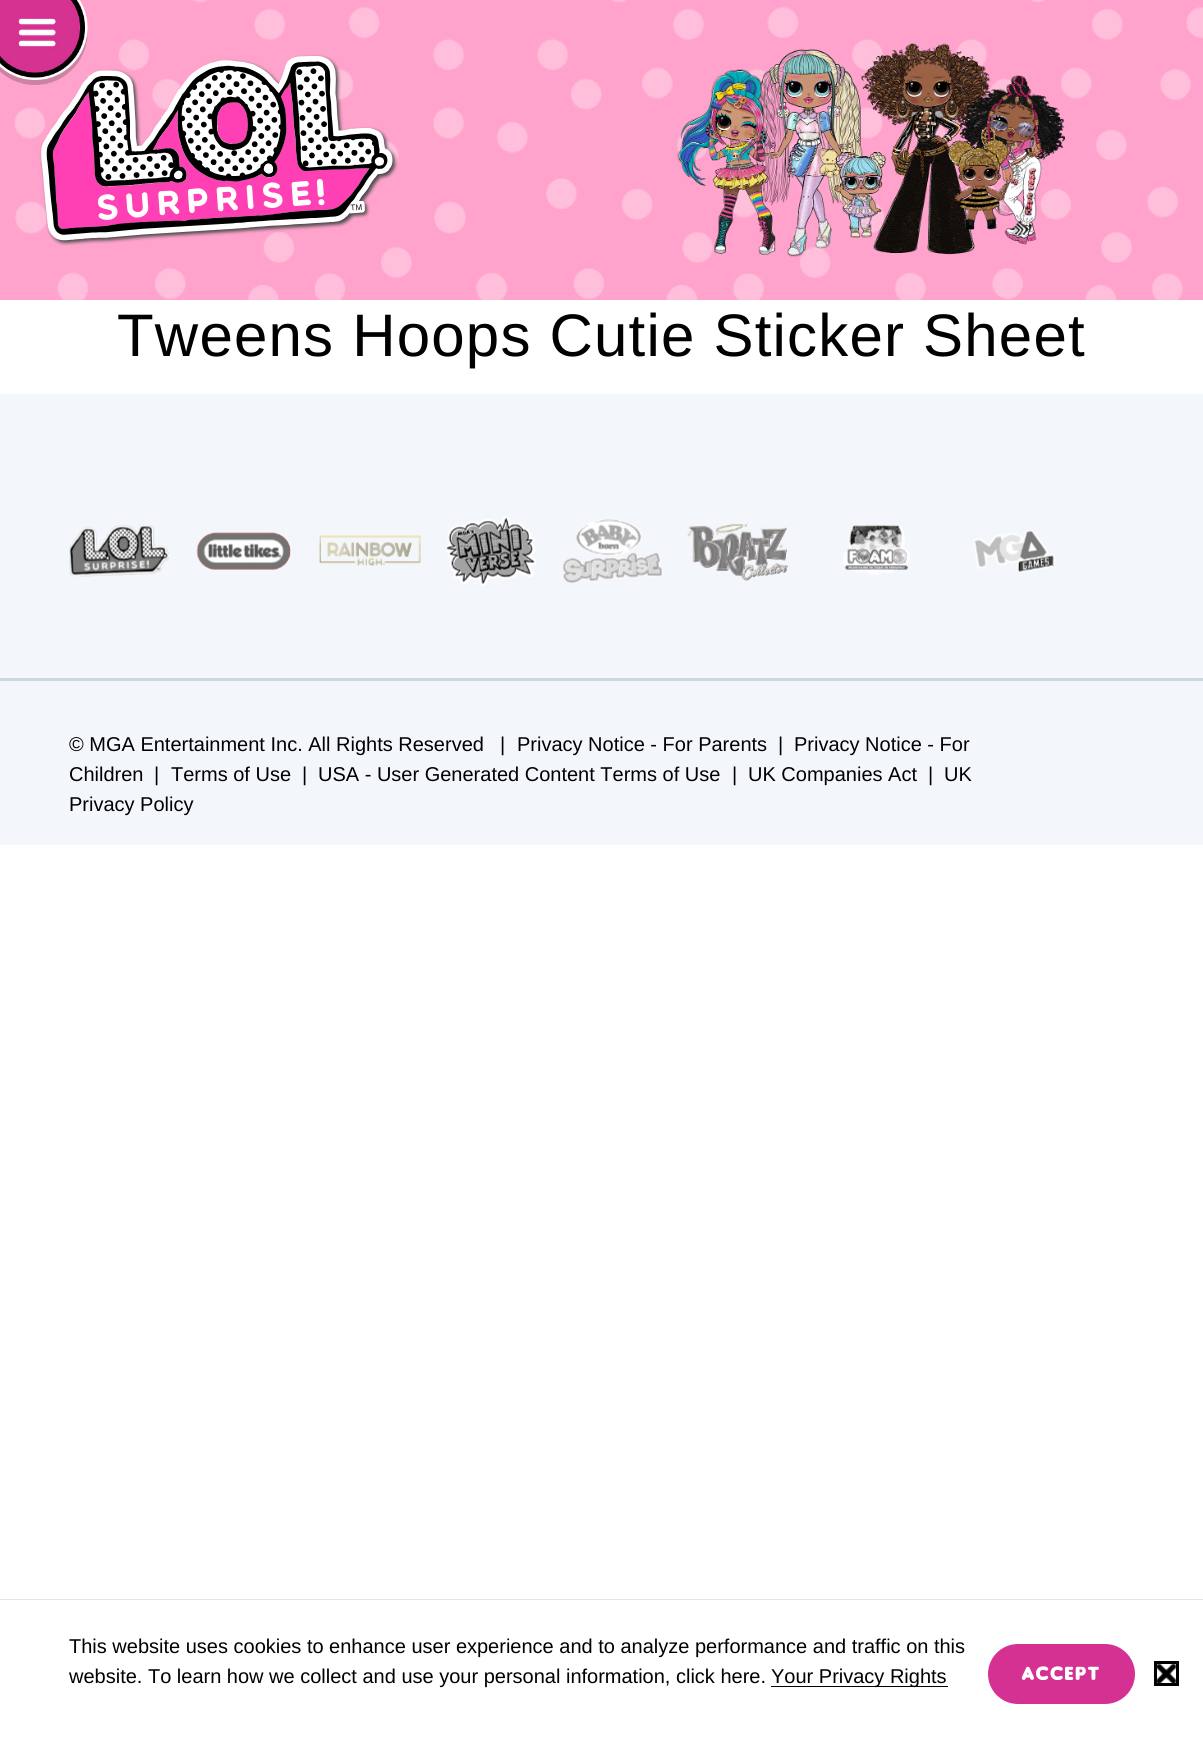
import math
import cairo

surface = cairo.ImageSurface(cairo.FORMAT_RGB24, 1203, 1747)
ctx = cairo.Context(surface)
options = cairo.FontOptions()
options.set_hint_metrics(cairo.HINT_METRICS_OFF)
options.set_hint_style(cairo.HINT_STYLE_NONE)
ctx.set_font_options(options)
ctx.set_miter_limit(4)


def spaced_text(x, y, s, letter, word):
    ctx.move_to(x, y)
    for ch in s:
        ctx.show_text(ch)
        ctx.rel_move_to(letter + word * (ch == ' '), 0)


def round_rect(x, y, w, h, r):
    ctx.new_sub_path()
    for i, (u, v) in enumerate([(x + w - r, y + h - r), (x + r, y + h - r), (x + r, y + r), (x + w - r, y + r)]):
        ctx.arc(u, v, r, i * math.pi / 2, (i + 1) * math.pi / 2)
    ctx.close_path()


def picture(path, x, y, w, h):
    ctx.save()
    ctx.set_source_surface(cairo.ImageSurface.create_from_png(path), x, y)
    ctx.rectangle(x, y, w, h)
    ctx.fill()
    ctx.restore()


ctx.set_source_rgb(1, 1, 1)
ctx.paint()
ctx.set_source_rgb(1, 0.639, 0.8)
ctx.rectangle(0, 0, 1203, 300)
ctx.fill()
picture("img1.png", 14, 0, 1189, 300)
picture("img3.png", 39, 54, 359, 192)
picture("img2.png", 0, 0, 88, 85)
picture("img4.png", 677, 43, 388, 214)
ctx.select_font_face("Liberation Sans")
ctx.set_font_size(60)
ctx.set_source_rgb(0, 0, 0)
spaced_text(117, 356, "Tweens Hoops Cutie Sticker Sheet", 1.2, 0)
ctx.set_source_rgb(0.953, 0.965, 0.984)
ctx.rectangle(0, 394, 1203, 451)
ctx.fill()
picture("img5.png", 69, 525, 100, 52)
picture("img6.png", 69, 525, 100, 52)
picture("img7.png", 196, 532, 95, 38)
picture("img8.png", 196, 532, 95, 38)
picture("img9.png", 319, 535, 102, 31)
picture("img10.png", 319, 535, 102, 31)
picture("img11.png", 445, 516, 92, 70)
picture("img12.png", 446, 516, 90, 70)
picture("img13.png", 562, 519, 101, 65)
picture("img14.png", 562, 519, 101, 64)
picture("img15.png", 687, 522, 101, 59)
picture("img16.png", 687, 523, 101, 58)
picture("img17.png", 843, 525, 67, 50)
picture("img18.png", 844, 525, 64, 45)
picture("img19.png", 973, 530, 82, 43)
picture("img20.png", 974, 530, 80, 38)
ctx.set_source_rgb(0.8, 0.843, 0.878)
ctx.rectangle(0, 678, 1203, 3)
ctx.fill()
ctx.set_font_size(20)
ctx.set_source_rgb(0, 0, 0)
ctx.move_to(69, 751)
ctx.show_text("© MGA Entertainment Inc. All Rights Reserved")
ctx.move_to(500, 751)
ctx.show_text("|")
ctx.move_to(517, 751)
ctx.show_text("Privacy Notice - For Parents")
ctx.move_to(778, 751)
ctx.show_text("|")
ctx.move_to(794, 751)
ctx.show_text("Privacy Notice - For")
ctx.move_to(69, 781)
ctx.show_text("Children")
ctx.move_to(154, 781)
ctx.show_text("|")
ctx.move_to(171, 781)
ctx.show_text("Terms of Use")
ctx.move_to(302, 781)
ctx.show_text("|")
ctx.move_to(318, 781)
ctx.show_text("USA - User Generated Content Terms of Use")
ctx.move_to(732, 781)
ctx.show_text("|")
ctx.move_to(748, 781)
ctx.show_text("UK Companies Act")
ctx.move_to(928, 781)
ctx.show_text("|")
ctx.move_to(944, 781)
ctx.show_text("UK")
ctx.move_to(69, 811)
ctx.show_text("Privacy Policy")
ctx.set_source_rgb(0.894, 0.894, 0.894)
ctx.rectangle(0, 1599, 1203, 1)
ctx.fill()
ctx.set_source_rgb(0, 0, 0)
ctx.move_to(69, 1653)
ctx.show_text("This website uses cookies to enhance user experience and to analyze performance and traffic on this")
ctx.move_to(69, 1683)
ctx.show_text("website. To learn how we collect and use your personal information, click here.")
ctx.rectangle(771, 1686, 177, 1)
ctx.fill()
ctx.move_to(771, 1683)
ctx.show_text("Your Privacy Rights")
ctx.set_source_rgb(0.835, 0.192, 0.573)
round_rect(988, 1644, 147, 60, 30)
ctx.fill()
ctx.select_font_face("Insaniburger")
ctx.set_source_rgb(1, 1, 1)
spaced_text(1021, 1680, "ACCEPT", 1.5, 0)
picture("img21.png", 1157, 1664, 19, 19)
ctx.rectangle(1155.5, 1662.5, 22, 22)
ctx.set_source_rgb(0, 0, 0)
ctx.set_line_width(3)
ctx.stroke()
surface.write_to_png("page.png")
